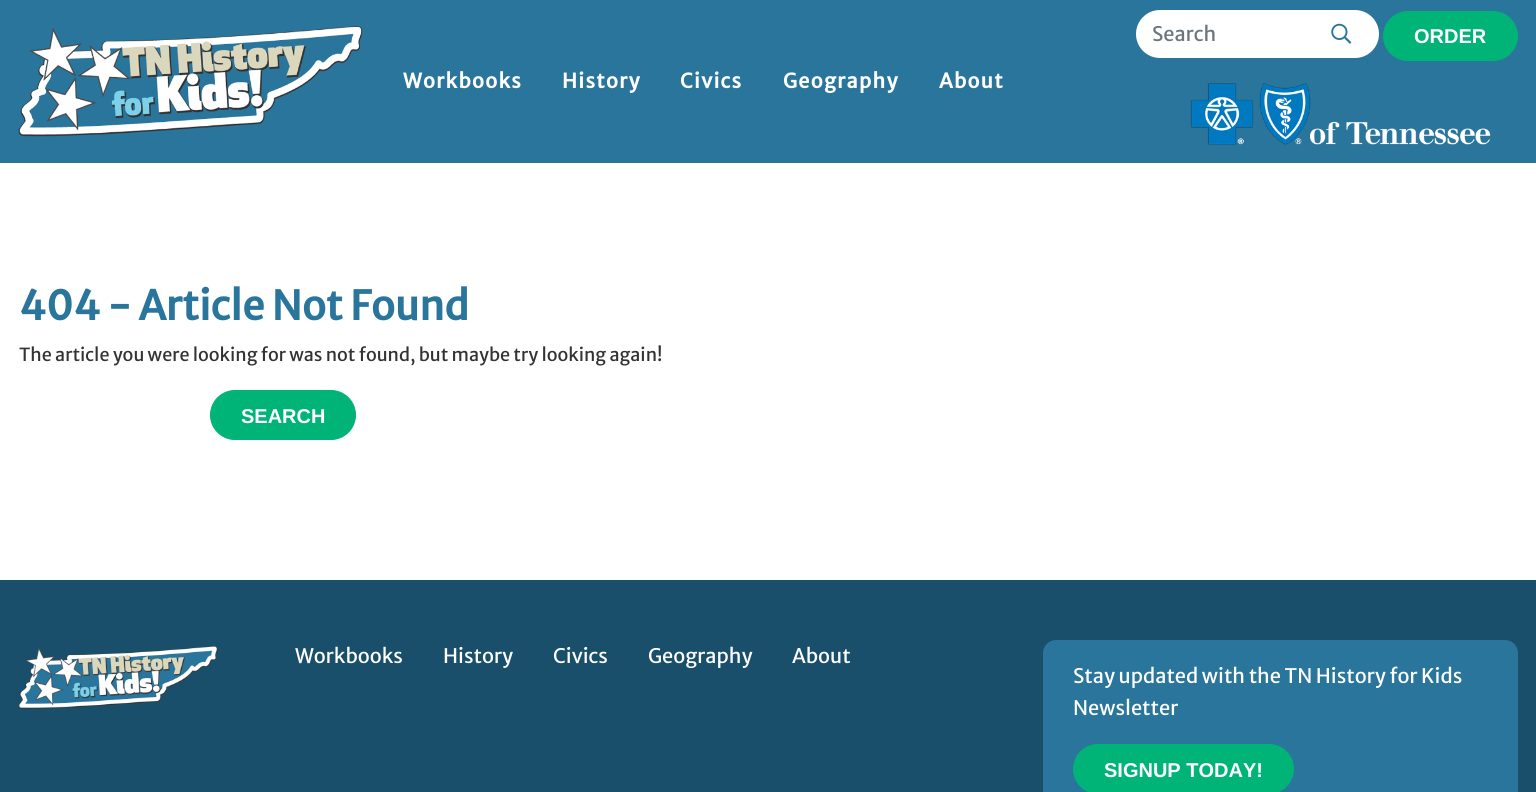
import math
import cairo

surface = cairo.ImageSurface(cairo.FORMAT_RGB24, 1536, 792)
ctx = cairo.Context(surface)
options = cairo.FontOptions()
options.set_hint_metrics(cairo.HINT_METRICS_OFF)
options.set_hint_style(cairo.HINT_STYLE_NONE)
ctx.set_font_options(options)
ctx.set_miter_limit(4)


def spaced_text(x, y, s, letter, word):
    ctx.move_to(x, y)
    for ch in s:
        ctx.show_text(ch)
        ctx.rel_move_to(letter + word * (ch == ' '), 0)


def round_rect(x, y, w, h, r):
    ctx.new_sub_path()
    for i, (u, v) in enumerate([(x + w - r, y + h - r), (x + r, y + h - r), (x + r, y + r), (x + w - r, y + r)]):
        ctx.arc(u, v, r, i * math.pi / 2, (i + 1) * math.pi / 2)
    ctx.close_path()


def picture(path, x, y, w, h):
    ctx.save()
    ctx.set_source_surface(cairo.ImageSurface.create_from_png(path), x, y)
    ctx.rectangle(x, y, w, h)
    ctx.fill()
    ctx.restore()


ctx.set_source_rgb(1, 1, 1)
ctx.paint()
ctx.set_source_rgb(0.165, 0.459, 0.608)
ctx.rectangle(0, 0, 1536, 163)
ctx.fill()
picture("img1.png", 18, 26, 345, 111)
ctx.select_font_face("Merriweather Sans", cairo.FONT_SLANT_NORMAL, cairo.FONT_WEIGHT_BOLD)
ctx.set_font_size(20)
ctx.set_source_rgb(1, 1, 1)
spaced_text(403, 88, "Workbooks", 1.25, 0)
spaced_text(562, 88, "History", 1.25, 0)
spaced_text(680, 88, "Civics", 1.25, 0)
spaced_text(783, 88, "Geography", 1.25, 0)
spaced_text(939, 88, "About", 1.25, 0)
round_rect(1136, 10, 243, 48, 24)
ctx.fill()
ctx.select_font_face("Merriweather Sans")
ctx.set_source_rgb(0.424, 0.459, 0.49)
ctx.move_to(1152, 41)
ctx.show_text("Search")
picture("img2.png", 1331, 23, 21, 21)
ctx.set_source_rgb(0, 0.702, 0.467)
round_rect(1383.5, 11.5, 134, 49, 24.5)
ctx.fill_preserve()
ctx.set_line_width(1)
ctx.stroke()
ctx.select_font_face("Liberation Sans", cairo.FONT_SLANT_NORMAL, cairo.FONT_WEIGHT_BOLD)
ctx.set_source_rgb(1, 1, 1)
ctx.move_to(1414, 43)
ctx.show_text("ORDER")
picture("img3.png", 1190, 83, 301, 62)
ctx.select_font_face("Merriweather Sans", cairo.FONT_SLANT_NORMAL, cairo.FONT_WEIGHT_BOLD)
ctx.set_font_size(40)
ctx.set_source_rgb(0.165, 0.459, 0.608)
ctx.move_to(19, 320)
ctx.show_text("404 - Article Not Found")
ctx.select_font_face("Merriweather Sans")
ctx.set_font_size(18)
ctx.set_source_rgb(0.2, 0.2, 0.2)
ctx.move_to(19, 361)
ctx.show_text("The article you were looking for was not found, but maybe try looking again!")
ctx.set_source_rgb(0, 0.702, 0.467)
round_rect(210.5, 390.5, 145, 49, 24.5)
ctx.fill_preserve()
ctx.stroke()
ctx.select_font_face("Liberation Sans", cairo.FONT_SLANT_NORMAL, cairo.FONT_WEIGHT_BOLD)
ctx.set_font_size(20)
ctx.set_source_rgb(1, 1, 1)
ctx.move_to(241, 423)
ctx.show_text("SEARCH")
ctx.set_source_rgb(0.098, 0.31, 0.416)
ctx.rectangle(0, 580, 1536, 212)
ctx.fill()
picture("img4.png", 18, 646, 200, 63)
ctx.select_font_face("Merriweather Sans")
ctx.set_source_rgb(1, 1, 1)
ctx.move_to(295, 663)
ctx.show_text("Workbooks")
ctx.move_to(443, 663)
ctx.show_text("History")
ctx.move_to(553, 663)
ctx.show_text("Civics")
ctx.move_to(648, 663)
ctx.show_text("Geography")
ctx.move_to(792, 663)
ctx.show_text("About")
ctx.set_source_rgb(0.165, 0.459, 0.608)
round_rect(1043, 640, 475, 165, 13)
ctx.fill()
ctx.set_source_rgb(1, 1, 1)
ctx.move_to(1073, 683)
ctx.show_text("Stay updated with the TN History for Kids")
ctx.move_to(1073, 715)
ctx.show_text("Newsletter")
ctx.set_source_rgb(0, 0.702, 0.467)
round_rect(1073.5, 744.5, 220, 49, 24.5)
ctx.fill_preserve()
ctx.stroke()
ctx.select_font_face("Liberation Sans", cairo.FONT_SLANT_NORMAL, cairo.FONT_WEIGHT_BOLD)
ctx.set_source_rgb(1, 1, 1)
ctx.move_to(1104, 777)
ctx.show_text("SIGNUP TODAY!")
surface.write_to_png("page.png")
